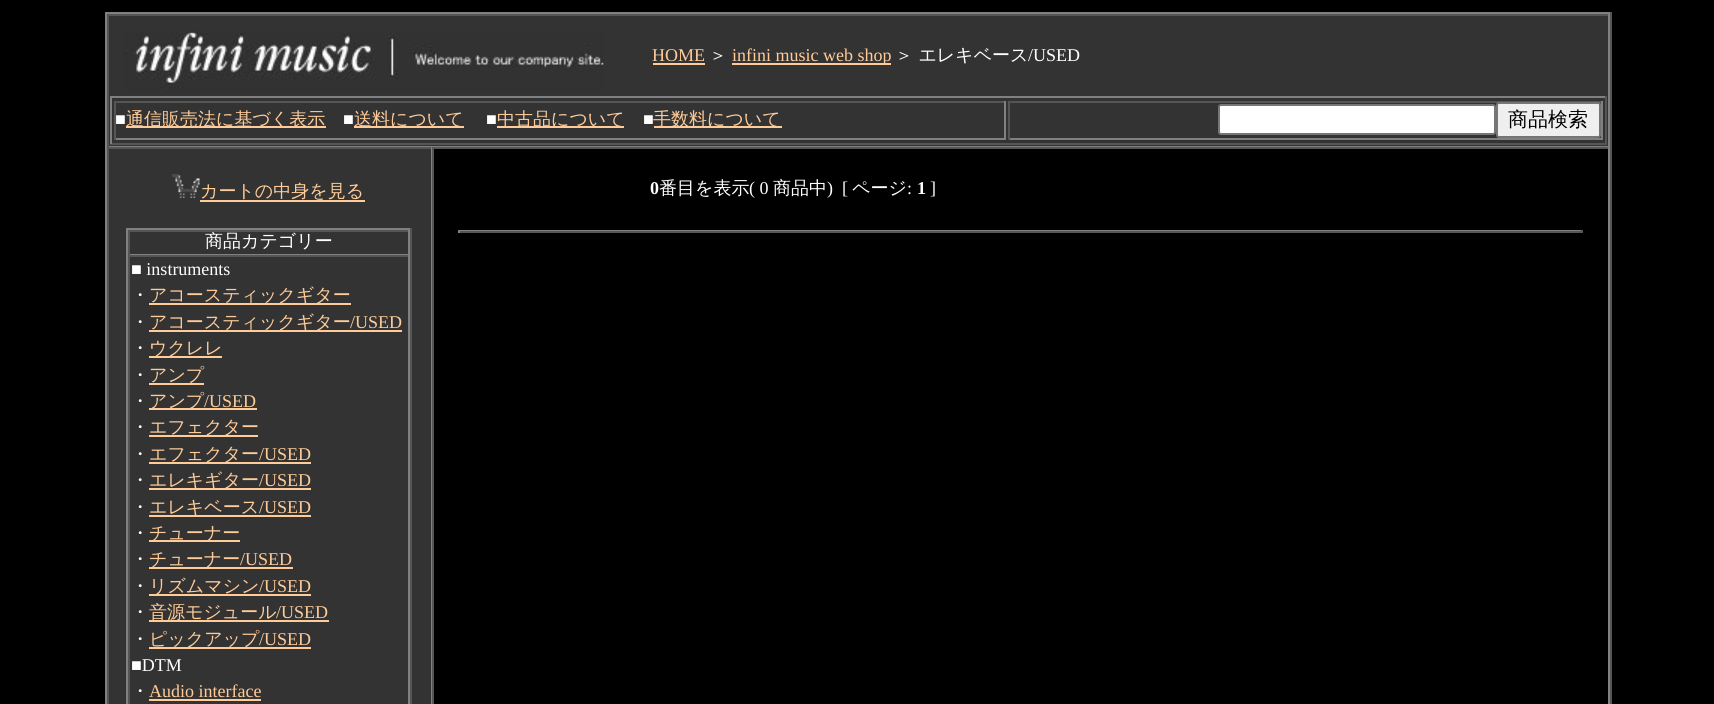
import math
import cairo

surface = cairo.ImageSurface(cairo.FORMAT_RGB24, 1714, 704)
ctx = cairo.Context(surface)
options = cairo.FontOptions()
options.set_hint_metrics(cairo.HINT_METRICS_OFF)
options.set_hint_style(cairo.HINT_STYLE_NONE)
ctx.set_font_options(options)
ctx.set_miter_limit(4)


def round_rect(x, y, w, h, r):
    ctx.new_sub_path()
    for i, (u, v) in enumerate([(x + w - r, y + h - r), (x + r, y + h - r), (x + r, y + r), (x + w - r, y + r)]):
        ctx.arc(u, v, r, i * math.pi / 2, (i + 1) * math.pi / 2)
    ctx.close_path()


def picture(path, x, y, w, h):
    ctx.save()
    ctx.set_source_surface(cairo.ImageSurface.create_from_png(path), x, y)
    ctx.rectangle(x, y, w, h)
    ctx.fill()
    ctx.restore()


ctx.set_source_rgb(0, 0, 0)
ctx.paint()
ctx.set_source_rgb(0.502, 0.502, 0.502)
ctx.rectangle(105, 12, 1506, 2)
ctx.fill()
ctx.set_source_rgb(0.333, 0.333, 0.333)
ctx.rectangle(1610, 12, 2, 692)
ctx.fill()
ctx.set_source_rgb(0.502, 0.502, 0.502)
ctx.rectangle(105, 12, 2, 692)
ctx.fill()
ctx.set_source_rgb(0.2, 0.2, 0.2)
ctx.rectangle(109, 16, 1499, 130)
ctx.fill()
ctx.set_source_rgb(0.333, 0.333, 0.333)
ctx.rectangle(107, 14, 1503, 2)
ctx.fill()
ctx.set_source_rgb(0.502, 0.502, 0.502)
ctx.rectangle(1608, 14, 2, 133)
ctx.fill()
ctx.rectangle(107, 146, 1503, 1)
ctx.fill()
ctx.set_source_rgb(0.333, 0.333, 0.333)
ctx.rectangle(107, 14, 2, 133)
ctx.fill()
picture("img1.png", 124, 31, 480, 61)
ctx.select_font_face("Liberation Serif")
ctx.set_font_size(18)
ctx.set_source_rgb(1, 0.8, 0.6)
ctx.move_to(652, 61)
ctx.show_text("HOME")
ctx.rectangle(653, 63, 52, 2)
ctx.fill()
ctx.select_font_face("WenQuanYi Zen Hei Medium")
ctx.set_source_rgb(1, 1, 1)
ctx.move_to(709, 61)
ctx.show_text("＞")
ctx.set_source_rgb(1, 0.8, 0.6)
ctx.rectangle(732, 63, 159, 2)
ctx.fill()
ctx.select_font_face("Liberation Serif")
ctx.move_to(732, 61)
ctx.show_text("infini music web shop")
ctx.select_font_face("WenQuanYi Zen Hei Medium")
ctx.set_source_rgb(1, 1, 1)
ctx.move_to(895, 61)
ctx.show_text("＞ エレキベース")
ctx.select_font_face("Liberation Serif")
ctx.move_to(1028, 61)
ctx.show_text("/USED")
ctx.set_source_rgb(0.502, 0.502, 0.502)
ctx.rectangle(110, 96, 1497, 2)
ctx.fill()
ctx.set_source_rgb(0.333, 0.333, 0.333)
ctx.rectangle(1605, 96, 2, 48)
ctx.fill()
ctx.rectangle(110, 143, 1497, 2)
ctx.fill()
ctx.set_source_rgb(0.502, 0.502, 0.502)
ctx.rectangle(110, 96, 2, 48)
ctx.fill()
ctx.set_source_rgb(0.333, 0.333, 0.333)
ctx.rectangle(114, 101, 891, 2)
ctx.fill()
ctx.set_source_rgb(0.502, 0.502, 0.502)
ctx.rectangle(1004, 101, 2, 39)
ctx.fill()
ctx.rectangle(114, 138, 891, 2)
ctx.fill()
ctx.set_source_rgb(0.333, 0.333, 0.333)
ctx.rectangle(114, 101, 2, 39)
ctx.fill()
ctx.set_source_rgb(1, 1, 1)
ctx.move_to(115, 125)
ctx.show_text("■")
ctx.set_source_rgb(1, 0.8, 0.6)
ctx.rectangle(126, 126, 200, 2)
ctx.fill()
ctx.select_font_face("WenQuanYi Zen Hei Medium")
ctx.move_to(126, 125)
ctx.show_text("通信販売法に基づく表示")
ctx.select_font_face("Liberation Serif")
ctx.set_source_rgb(1, 1, 1)
ctx.move_to(343, 125)
ctx.show_text("■")
ctx.set_source_rgb(1, 0.8, 0.6)
ctx.rectangle(354, 126, 110, 2)
ctx.fill()
ctx.select_font_face("WenQuanYi Zen Hei Medium")
ctx.move_to(354, 125)
ctx.show_text("送料について")
ctx.select_font_face("Liberation Serif")
ctx.set_source_rgb(1, 1, 1)
ctx.move_to(486, 125)
ctx.show_text("■")
ctx.set_source_rgb(1, 0.8, 0.6)
ctx.rectangle(497, 126, 127, 2)
ctx.fill()
ctx.select_font_face("WenQuanYi Zen Hei Medium")
ctx.move_to(497, 125)
ctx.show_text("中古品について")
ctx.select_font_face("Liberation Serif")
ctx.set_source_rgb(1, 1, 1)
ctx.move_to(643, 125)
ctx.show_text("■")
ctx.set_source_rgb(1, 0.8, 0.6)
ctx.rectangle(654, 126, 128, 2)
ctx.fill()
ctx.select_font_face("WenQuanYi Zen Hei Medium")
ctx.move_to(653, 125)
ctx.show_text("手数料について")
ctx.set_source_rgb(0.333, 0.333, 0.333)
ctx.rectangle(1008, 101, 594, 2)
ctx.fill()
ctx.set_source_rgb(0.502, 0.502, 0.502)
ctx.rectangle(1601, 101, 2, 39)
ctx.fill()
ctx.rectangle(1008, 138, 594, 2)
ctx.fill()
ctx.set_source_rgb(0.333, 0.333, 0.333)
ctx.rectangle(1008, 101, 2, 39)
ctx.fill()
ctx.set_source_rgb(1, 1, 1)
round_rect(1219, 105, 276, 29, 2)
ctx.fill_preserve()
ctx.set_source_rgb(0.463, 0.463, 0.463)
ctx.stroke()
ctx.set_source_rgb(0.937, 0.937, 0.937)
round_rect(1497, 103, 103, 34, 2)
ctx.fill_preserve()
ctx.set_source_rgb(0.463, 0.463, 0.463)
ctx.stroke()
ctx.set_font_size(20)
ctx.set_source_rgb(0, 0, 0)
ctx.move_to(1508, 126)
ctx.show_text("商品検索")
ctx.set_source_rgb(0.2, 0.2, 0.2)
ctx.rectangle(109, 149, 322, 555)
ctx.fill()
ctx.set_source_rgb(0.333, 0.333, 0.333)
ctx.rectangle(107, 147, 1503, 2)
ctx.fill()
ctx.set_source_rgb(0.502, 0.502, 0.502)
ctx.rectangle(431, 147, 1, 557)
ctx.fill()
ctx.set_source_rgb(0.333, 0.333, 0.333)
ctx.rectangle(107, 147, 2, 557)
ctx.fill()
picture("img2.png", 172, 174, 28, 24)
ctx.set_font_size(18)
ctx.set_source_rgb(1, 0.8, 0.6)
ctx.move_to(200, 197)
ctx.show_text("カートの中身を見る")
ctx.rectangle(200, 200, 165, 2)
ctx.fill()
ctx.set_source_rgb(0.502, 0.502, 0.502)
ctx.rectangle(126, 228, 285, 2)
ctx.fill()
ctx.set_source_rgb(0.333, 0.333, 0.333)
ctx.rectangle(410, 228, 2, 476)
ctx.fill()
ctx.set_source_rgb(0.502, 0.502, 0.502)
ctx.rectangle(126, 228, 2, 476)
ctx.fill()
ctx.set_source_rgb(0.333, 0.333, 0.333)
ctx.rectangle(128, 230, 282, 2)
ctx.fill()
ctx.set_source_rgb(0.502, 0.502, 0.502)
ctx.rectangle(408, 230, 2, 25)
ctx.fill()
ctx.rectangle(128, 254, 282, 1)
ctx.fill()
ctx.set_source_rgb(0.333, 0.333, 0.333)
ctx.rectangle(128, 230, 2, 25)
ctx.fill()
ctx.set_source_rgb(1, 1, 1)
ctx.move_to(205, 247)
ctx.show_text("商品カテゴリー")
ctx.set_source_rgb(0.333, 0.333, 0.333)
ctx.rectangle(128, 255, 282, 2)
ctx.fill()
ctx.set_source_rgb(0.502, 0.502, 0.502)
ctx.rectangle(408, 255, 2, 449)
ctx.fill()
ctx.set_source_rgb(0.333, 0.333, 0.333)
ctx.rectangle(128, 255, 2, 449)
ctx.fill()
ctx.select_font_face("Liberation Serif")
ctx.set_source_rgb(1, 1, 1)
ctx.move_to(131, 275)
ctx.show_text("■ instruments")
ctx.select_font_face("WenQuanYi Zen Hei Medium")
ctx.move_to(131, 301)
ctx.show_text("・")
ctx.set_source_rgb(1, 0.8, 0.6)
ctx.rectangle(149, 303, 202, 2)
ctx.fill()
ctx.move_to(149, 301)
ctx.show_text("アコースティックギター")
ctx.set_source_rgb(1, 1, 1)
ctx.move_to(131, 328)
ctx.show_text("・")
ctx.set_source_rgb(1, 0.8, 0.6)
ctx.rectangle(149, 330, 253, 2)
ctx.fill()
ctx.move_to(149, 328)
ctx.show_text("アコースティックギター")
ctx.select_font_face("Liberation Serif")
ctx.move_to(350, 328)
ctx.show_text("/USED")
ctx.select_font_face("WenQuanYi Zen Hei Medium")
ctx.set_source_rgb(1, 1, 1)
ctx.move_to(131, 354)
ctx.show_text("・")
ctx.set_source_rgb(1, 0.8, 0.6)
ctx.rectangle(149, 356, 73, 2)
ctx.fill()
ctx.move_to(149, 354)
ctx.show_text("ウクレレ")
ctx.set_source_rgb(1, 1, 1)
ctx.move_to(131, 381)
ctx.show_text("・")
ctx.set_source_rgb(1, 0.8, 0.6)
ctx.rectangle(149, 383, 55, 2)
ctx.fill()
ctx.move_to(149, 381)
ctx.show_text("アンプ")
ctx.set_source_rgb(1, 1, 1)
ctx.move_to(131, 407)
ctx.show_text("・")
ctx.set_source_rgb(1, 0.8, 0.6)
ctx.rectangle(149, 408, 108, 2)
ctx.fill()
ctx.move_to(149, 407)
ctx.show_text("アンプ")
ctx.select_font_face("Liberation Serif")
ctx.move_to(204, 407)
ctx.show_text("/USED")
ctx.select_font_face("WenQuanYi Zen Hei Medium")
ctx.set_source_rgb(1, 1, 1)
ctx.move_to(131, 433)
ctx.show_text("・")
ctx.set_source_rgb(1, 0.8, 0.6)
ctx.rectangle(149, 435, 109, 2)
ctx.fill()
ctx.move_to(149, 433)
ctx.show_text("エフェクター")
ctx.set_source_rgb(1, 1, 1)
ctx.move_to(131, 460)
ctx.show_text("・")
ctx.set_source_rgb(1, 0.8, 0.6)
ctx.rectangle(149, 462, 162, 2)
ctx.fill()
ctx.move_to(149, 460)
ctx.show_text("エフェクター")
ctx.select_font_face("Liberation Serif")
ctx.move_to(259, 460)
ctx.show_text("/USED")
ctx.select_font_face("WenQuanYi Zen Hei Medium")
ctx.set_source_rgb(1, 1, 1)
ctx.move_to(131, 486)
ctx.show_text("・")
ctx.set_source_rgb(1, 0.8, 0.6)
ctx.rectangle(149, 488, 162, 2)
ctx.fill()
ctx.move_to(149, 486)
ctx.show_text("エレキギター")
ctx.select_font_face("Liberation Serif")
ctx.move_to(259, 486)
ctx.show_text("/USED")
ctx.select_font_face("WenQuanYi Zen Hei Medium")
ctx.set_source_rgb(1, 1, 1)
ctx.move_to(131, 513)
ctx.show_text("・")
ctx.set_source_rgb(1, 0.8, 0.6)
ctx.rectangle(149, 515, 162, 2)
ctx.fill()
ctx.move_to(149, 513)
ctx.show_text("エレキベース")
ctx.select_font_face("Liberation Serif")
ctx.move_to(259, 513)
ctx.show_text("/USED")
ctx.select_font_face("WenQuanYi Zen Hei Medium")
ctx.set_source_rgb(1, 1, 1)
ctx.move_to(131, 539)
ctx.show_text("・")
ctx.set_source_rgb(1, 0.8, 0.6)
ctx.rectangle(149, 540, 91, 2)
ctx.fill()
ctx.move_to(149, 539)
ctx.show_text("チューナー")
ctx.set_source_rgb(1, 1, 1)
ctx.move_to(131, 565)
ctx.show_text("・")
ctx.set_source_rgb(1, 0.8, 0.6)
ctx.rectangle(149, 567, 144, 2)
ctx.fill()
ctx.move_to(149, 565)
ctx.show_text("チューナー")
ctx.select_font_face("Liberation Serif")
ctx.move_to(240, 565)
ctx.show_text("/USED")
ctx.select_font_face("WenQuanYi Zen Hei Medium")
ctx.set_source_rgb(1, 1, 1)
ctx.move_to(131, 592)
ctx.show_text("・")
ctx.set_source_rgb(1, 0.8, 0.6)
ctx.rectangle(149, 594, 162, 2)
ctx.fill()
ctx.move_to(149, 592)
ctx.show_text("リズムマシン")
ctx.select_font_face("Liberation Serif")
ctx.move_to(259, 592)
ctx.show_text("/USED")
ctx.select_font_face("WenQuanYi Zen Hei Medium")
ctx.set_source_rgb(1, 1, 1)
ctx.move_to(131, 618)
ctx.show_text("・")
ctx.set_source_rgb(1, 0.8, 0.6)
ctx.rectangle(149, 620, 180, 2)
ctx.fill()
ctx.move_to(149, 618)
ctx.show_text("音源モジュール")
ctx.select_font_face("Liberation Serif")
ctx.move_to(276, 618)
ctx.show_text("/USED")
ctx.select_font_face("WenQuanYi Zen Hei Medium")
ctx.set_source_rgb(1, 1, 1)
ctx.move_to(131, 645)
ctx.show_text("・")
ctx.set_source_rgb(1, 0.8, 0.6)
ctx.rectangle(149, 647, 162, 2)
ctx.fill()
ctx.move_to(149, 645)
ctx.show_text("ピックアップ")
ctx.select_font_face("Liberation Serif")
ctx.move_to(259, 645)
ctx.show_text("/USED")
ctx.set_source_rgb(1, 1, 1)
ctx.move_to(131, 671)
ctx.show_text("■DTM")
ctx.select_font_face("WenQuanYi Zen Hei Medium")
ctx.move_to(131, 697)
ctx.show_text("・")
ctx.select_font_face("Liberation Serif")
ctx.set_source_rgb(1, 0.8, 0.6)
ctx.move_to(149, 697)
ctx.show_text("Audio interface")
ctx.rectangle(149, 699, 112, 2)
ctx.fill()
ctx.set_source_rgb(0.502, 0.502, 0.502)
ctx.rectangle(1608, 147, 2, 557)
ctx.fill()
ctx.set_source_rgb(0.333, 0.333, 0.333)
ctx.rectangle(432, 147, 2, 557)
ctx.fill()
ctx.select_font_face("Liberation Serif", cairo.FONT_SLANT_NORMAL, cairo.FONT_WEIGHT_BOLD)
ctx.set_source_rgb(1, 1, 1)
ctx.move_to(650, 194)
ctx.show_text("0")
ctx.select_font_face("WenQuanYi Zen Hei Medium")
ctx.move_to(659, 194)
ctx.show_text("番目を表示")
ctx.select_font_face("Liberation Serif")
ctx.move_to(749, 194)
ctx.show_text("( 0")
ctx.select_font_face("WenQuanYi Zen Hei Medium")
ctx.move_to(773, 194)
ctx.show_text("商品中")
ctx.select_font_face("Liberation Serif")
ctx.move_to(827, 194)
ctx.show_text(")  [")
ctx.select_font_face("WenQuanYi Zen Hei Medium")
ctx.move_to(852, 194)
ctx.show_text("ページ")
ctx.select_font_face("Liberation Serif")
ctx.move_to(907, 194)
ctx.show_text(":")
ctx.select_font_face("Liberation Serif", cairo.FONT_SLANT_NORMAL, cairo.FONT_WEIGHT_BOLD)
ctx.move_to(917, 194)
ctx.show_text("1")
ctx.select_font_face("Liberation Serif")
ctx.move_to(930, 194)
ctx.show_text("]")
ctx.set_source_rgb(0.502, 0.502, 0.502)
ctx.rectangle(458, 230, 1125, 1)
ctx.fill()
ctx.set_source_rgb(0.333, 0.333, 0.333)
ctx.rectangle(1581, 230, 2, 3)
ctx.fill()
ctx.rectangle(458, 231, 1125, 2)
ctx.fill()
ctx.set_source_rgb(0.502, 0.502, 0.502)
ctx.rectangle(458, 230, 2, 3)
ctx.fill()
surface.write_to_png("page.png")
